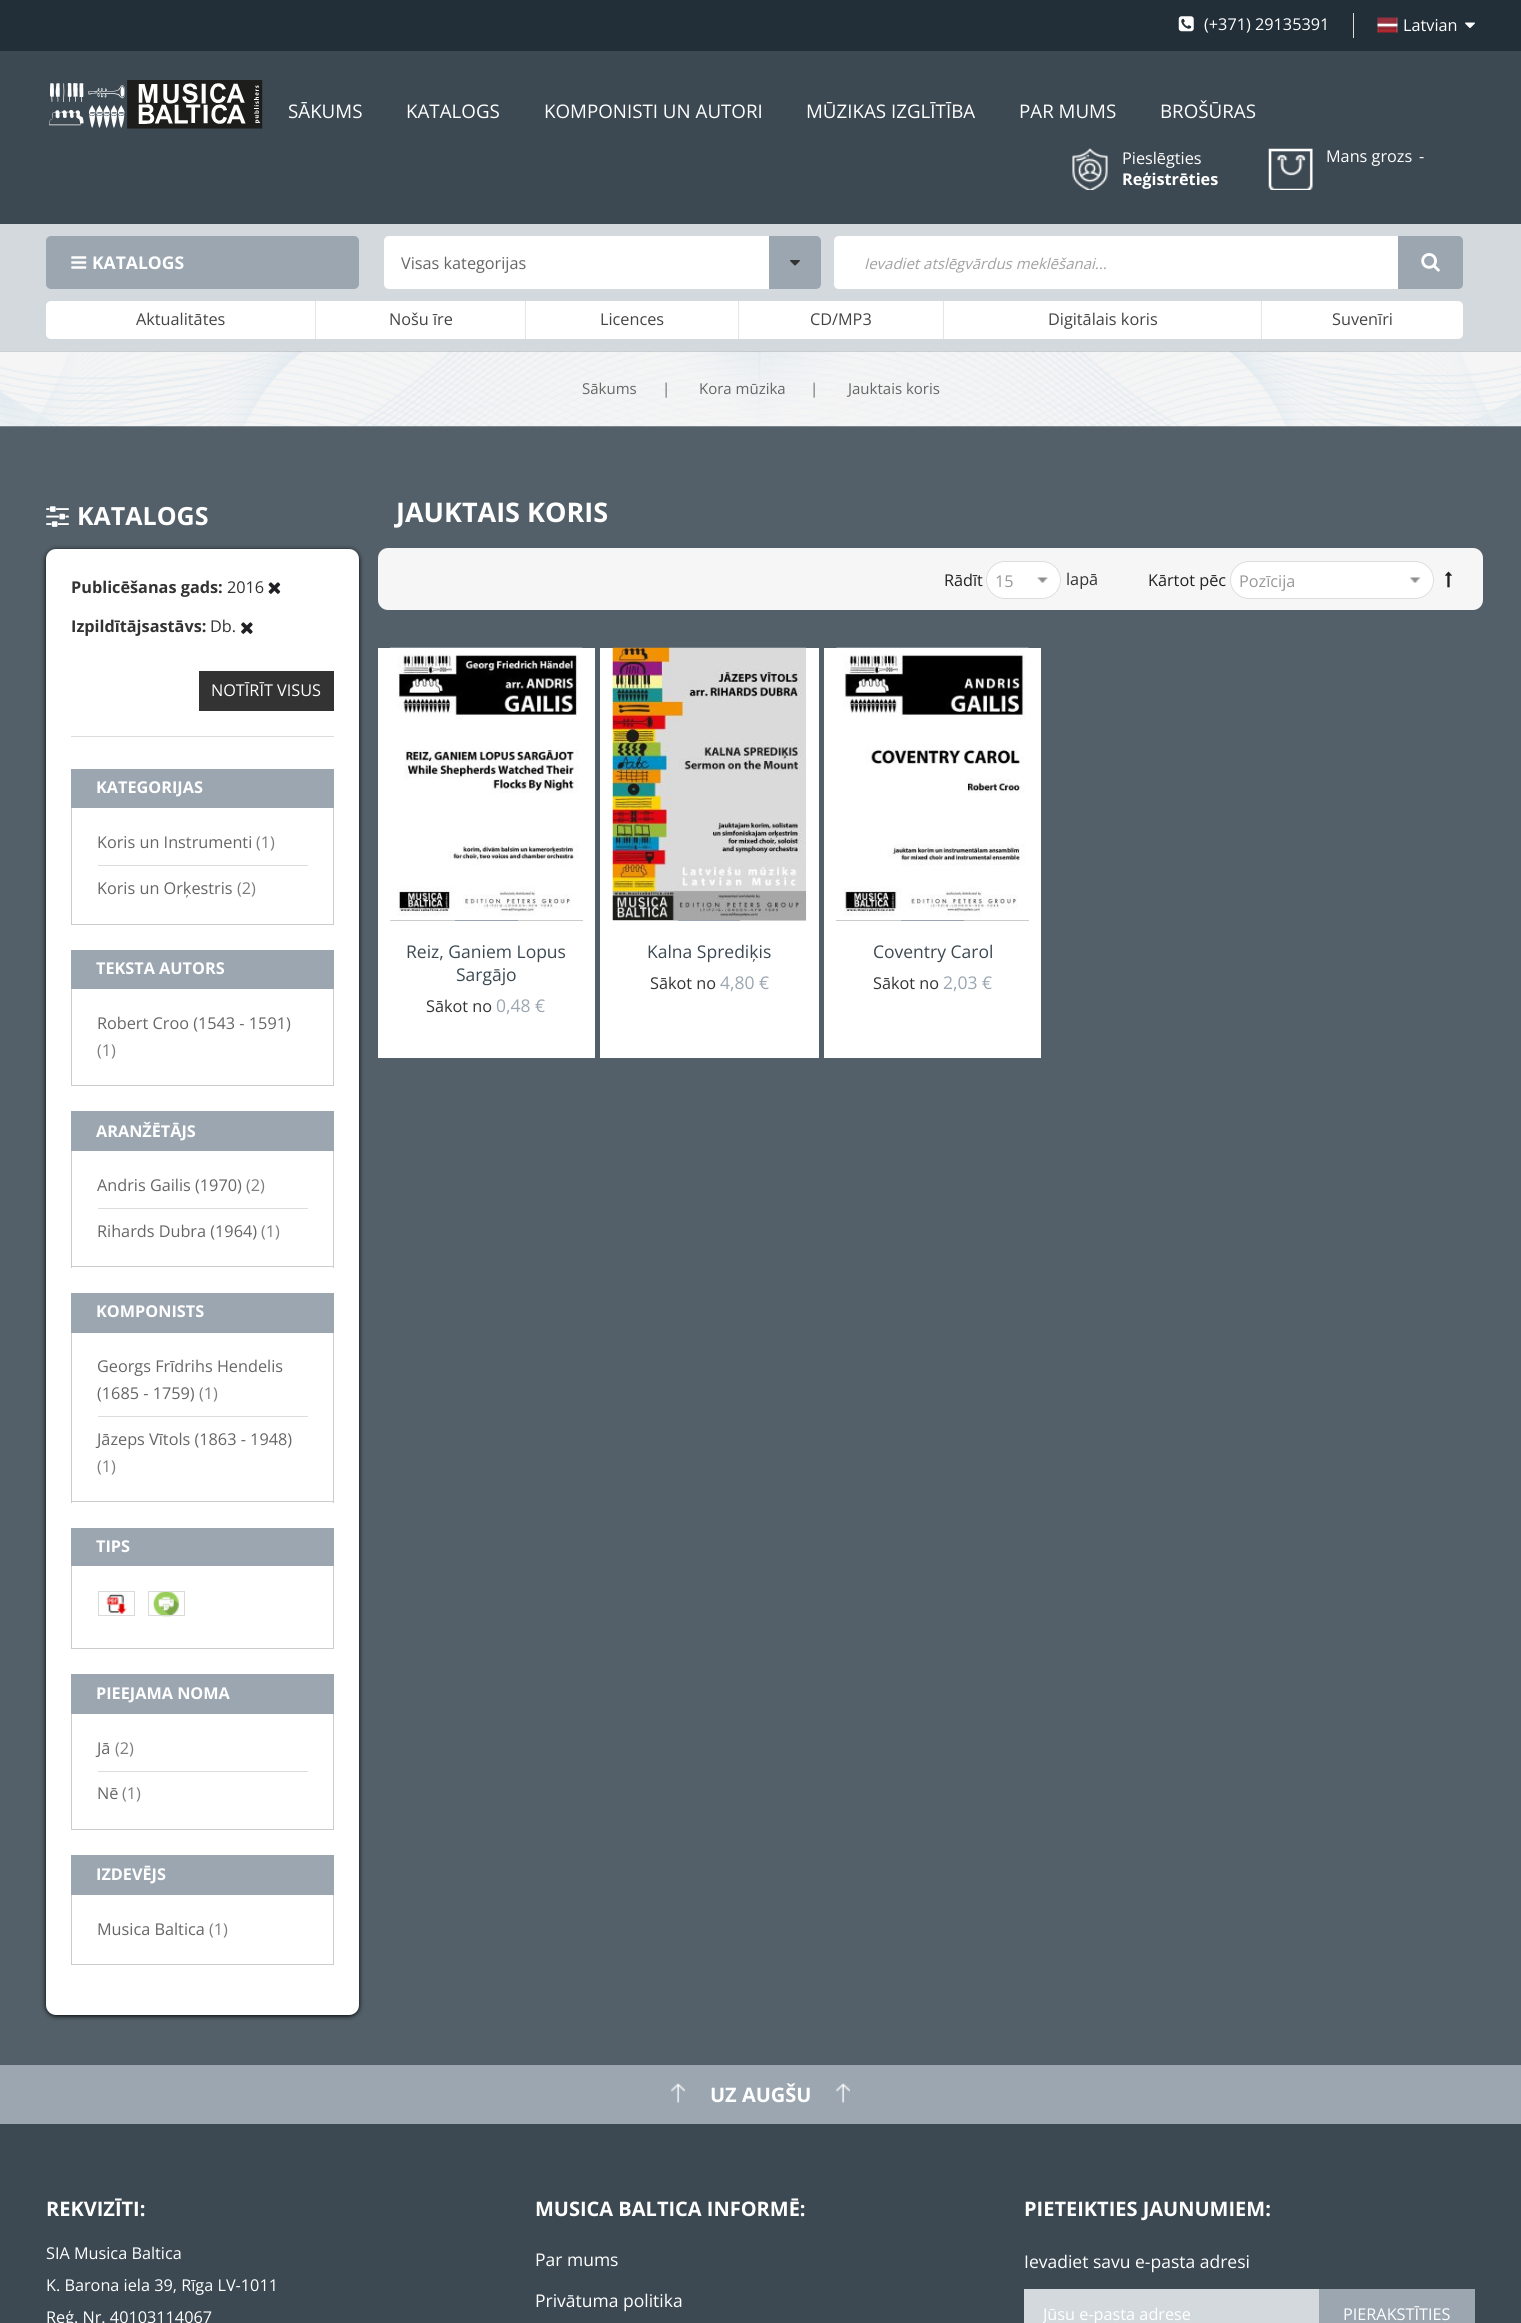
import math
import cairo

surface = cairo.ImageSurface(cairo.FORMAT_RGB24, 1521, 2323)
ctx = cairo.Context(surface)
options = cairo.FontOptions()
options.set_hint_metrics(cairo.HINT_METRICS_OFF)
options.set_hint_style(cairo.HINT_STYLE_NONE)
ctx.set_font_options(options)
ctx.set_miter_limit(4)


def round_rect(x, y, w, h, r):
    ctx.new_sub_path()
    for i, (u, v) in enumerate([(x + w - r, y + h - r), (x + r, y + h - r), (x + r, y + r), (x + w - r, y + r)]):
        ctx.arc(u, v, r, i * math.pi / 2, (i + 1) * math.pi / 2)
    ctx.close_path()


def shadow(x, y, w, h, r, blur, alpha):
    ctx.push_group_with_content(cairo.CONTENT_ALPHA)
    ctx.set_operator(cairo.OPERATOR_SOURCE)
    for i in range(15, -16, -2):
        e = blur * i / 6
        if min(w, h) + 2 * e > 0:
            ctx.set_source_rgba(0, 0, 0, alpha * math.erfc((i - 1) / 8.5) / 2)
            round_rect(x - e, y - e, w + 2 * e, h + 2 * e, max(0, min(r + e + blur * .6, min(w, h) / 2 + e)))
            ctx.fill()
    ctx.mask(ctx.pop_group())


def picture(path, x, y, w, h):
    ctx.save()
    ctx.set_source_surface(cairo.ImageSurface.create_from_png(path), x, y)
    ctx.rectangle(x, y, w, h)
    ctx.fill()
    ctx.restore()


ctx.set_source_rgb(0.325, 0.376, 0.412)
ctx.paint()
ctx.set_source_rgb(0.133, 0.184, 0.22)
ctx.rectangle(0, 0, 1521, 51)
ctx.fill()
picture("img1.png", 1178, 16, 16, 16)
ctx.select_font_face("Open Sans")
ctx.set_font_size(16.25)
ctx.set_source_rgb(1, 1, 1)
ctx.move_to(1204, 30)
ctx.show_text("(+371) 29135391")
ctx.set_source_rgb(0.863, 0.863, 0.863)
ctx.rectangle(1353, 13, 1, 25)
ctx.fill()
picture("img2.png", 1377, 17, 21, 16)
ctx.set_source_rgb(1, 1, 1)
ctx.move_to(1403, 31)
ctx.show_text("Latvian")
picture("img3.png", 1465, 22, 10, 6)
ctx.set_source_rgb(0.235, 0.286, 0.322)
ctx.rectangle(0, 51, 1521, 173)
ctx.fill()
picture("img4.png", 49, 80, 214, 49)
ctx.set_font_size(18.75)
ctx.set_source_rgb(1, 1, 1)
ctx.move_to(288, 118)
ctx.show_text("SĀKUMS")
ctx.move_to(406, 118)
ctx.show_text("KATALOGS")
ctx.move_to(544, 118)
ctx.show_text("KOMPONISTI UN AUTORI")
ctx.move_to(806, 118)
ctx.show_text("MŪZIKAS IZGLĪTĪBA")
ctx.move_to(1019, 118)
ctx.show_text("PAR MUMS")
ctx.move_to(1160, 118)
ctx.show_text("BROŠŪRAS")
picture("img5.png", 1072, 148, 36, 42)
ctx.set_font_size(16.25)
ctx.move_to(1122, 164)
ctx.show_text("Pieslēgties")
ctx.select_font_face("Open Sans", cairo.FONT_SLANT_NORMAL, cairo.FONT_WEIGHT_BOLD)
ctx.move_to(1122, 185)
ctx.show_text("Reģistrēties")
picture("img6.png", 1268, 148, 45, 42)
ctx.select_font_face("Open Sans")
ctx.move_to(1326, 162)
ctx.show_text("Mans grozs")
ctx.move_to(1419, 162)
ctx.show_text("-")
ctx.set_source_rgb(0.831, 0.851, 0.871)
ctx.rectangle(0, 224, 1521, 127)
ctx.fill()
ctx.set_source_rgb(0.608, 0.651, 0.694)
round_rect(46, 236, 313, 53, 5)
ctx.fill()
picture("img7.png", 71, 256, 16, 13)
ctx.select_font_face("Open Sans", cairo.FONT_SLANT_NORMAL, cairo.FONT_WEIGHT_BOLD)
ctx.set_font_size(17.5)
ctx.set_source_rgb(1, 1, 1)
ctx.move_to(92, 269)
ctx.show_text("KATALOGS")
round_rect(384, 236, 437, 53, 5)
ctx.fill()
ctx.select_font_face("Open Sans")
ctx.set_font_size(16.25)
ctx.set_source_rgb(0.4, 0.4, 0.4)
ctx.move_to(401, 269)
ctx.show_text("Visas kategorijas")
ctx.set_source_rgb(0.608, 0.651, 0.694)
ctx.new_path()
ctx.move_to(769, 236)
ctx.line_to(816, 236)
ctx.curve_to(819, 236, 821, 238, 821, 241)
ctx.line_to(821, 284)
ctx.curve_to(821, 287, 819, 289, 816, 289)
ctx.line_to(769, 289)
ctx.close_path()
ctx.fill()
picture("img8.png", 790, 260, 10, 6)
ctx.set_source_rgb(1, 1, 1)
ctx.new_path()
ctx.move_to(839, 236)
ctx.line_to(1398, 236)
ctx.line_to(1398, 289)
ctx.line_to(839, 289)
ctx.curve_to(836, 289, 834, 287, 834, 284)
ctx.line_to(834, 241)
ctx.curve_to(834, 238, 836, 236, 839, 236)
ctx.close_path()
ctx.fill()
ctx.select_font_face("Open Sans", cairo.FONT_SLANT_ITALIC)
ctx.set_font_size(15)
ctx.set_source_rgb(0.635, 0.635, 0.635)
ctx.move_to(864, 269)
ctx.show_text("Ievadiet atslēgvārdus meklēšanai...")
ctx.set_source_rgb(0.608, 0.651, 0.694)
ctx.new_path()
ctx.move_to(1398, 236)
ctx.line_to(1458, 236)
ctx.curve_to(1461, 236, 1463, 238, 1463, 241)
ctx.line_to(1463, 284)
ctx.curve_to(1463, 287, 1461, 289, 1458, 289)
ctx.line_to(1398, 289)
ctx.close_path()
ctx.fill()
picture("img9.png", 1421, 253, 19, 19)
ctx.set_source_rgb(1, 1, 1)
round_rect(46, 301, 1417, 38, 5)
ctx.fill()
ctx.set_source_rgb(0.898, 0.898, 0.898)
ctx.rectangle(315, 301, 1, 38)
ctx.fill()
ctx.select_font_face("Open Sans")
ctx.set_font_size(16.25)
ctx.set_source_rgb(0.267, 0.267, 0.267)
ctx.move_to(136, 325)
ctx.show_text("Aktualitātes")
ctx.set_source_rgb(0.898, 0.898, 0.898)
ctx.rectangle(525, 301, 1, 38)
ctx.fill()
ctx.set_source_rgb(0.267, 0.267, 0.267)
ctx.move_to(389, 325)
ctx.show_text("Nošu īre")
ctx.set_source_rgb(0.898, 0.898, 0.898)
ctx.rectangle(738, 301, 1, 38)
ctx.fill()
ctx.set_source_rgb(0.267, 0.267, 0.267)
ctx.move_to(600, 325)
ctx.show_text("Licences")
ctx.set_source_rgb(0.898, 0.898, 0.898)
ctx.rectangle(943, 301, 1, 38)
ctx.fill()
ctx.set_source_rgb(0.267, 0.267, 0.267)
ctx.move_to(810, 325)
ctx.show_text("CD/MP3")
ctx.set_source_rgb(0.898, 0.898, 0.898)
ctx.rectangle(1261, 301, 1, 38)
ctx.fill()
ctx.set_source_rgb(0.267, 0.267, 0.267)
ctx.move_to(1048, 325)
ctx.show_text("Digitālais koris")
ctx.move_to(1332, 325)
ctx.show_text("Suvenīri")
picture("img10.png", 0, 351, 1521, 76)
ctx.set_font_size(15)
ctx.set_source_rgb(0.4, 0.4, 0.4)
ctx.move_to(582, 394)
ctx.show_text("Sākums")
ctx.move_to(662, 394)
ctx.show_text("|")
ctx.move_to(699, 394)
ctx.show_text("Kora mūzika")
ctx.move_to(810, 394)
ctx.show_text("|")
ctx.move_to(848, 394)
ctx.show_text("Jauktais koris")
picture("img11.png", 46, 506, 23, 21)
ctx.select_font_face("Open Sans", cairo.FONT_SLANT_NORMAL, cairo.FONT_WEIGHT_BOLD)
ctx.set_font_size(25)
ctx.set_source_rgb(1, 1, 1)
ctx.move_to(77, 525)
ctx.show_text("KATALOGS")
ctx.set_source_rgb(0, 0, 0)
shadow(46, 550, 313, 1466, 10, 2.5, 1)
ctx.set_source_rgb(1, 1, 1)
round_rect(46, 549, 313, 1466, 10)
ctx.fill()
ctx.set_font_size(16.25)
ctx.set_source_rgb(0.2, 0.2, 0.2)
ctx.move_to(71, 593)
ctx.show_text("Publicēšanas gads:")
ctx.select_font_face("Open Sans")
ctx.move_to(227, 593)
ctx.show_text("2016")
picture("img12.png", 268, 582, 13, 12)
ctx.select_font_face("Open Sans", cairo.FONT_SLANT_NORMAL, cairo.FONT_WEIGHT_BOLD)
ctx.move_to(71, 632)
ctx.show_text("Izpildītājsastāvs:")
ctx.select_font_face("Open Sans")
ctx.move_to(210, 632)
ctx.show_text("Db.")
picture("img13.png", 241, 622, 12, 12)
ctx.set_source_rgb(0.867, 0.867, 0.867)
ctx.rectangle(71, 736, 263, 1)
ctx.fill()
ctx.set_source_rgb(0.2, 0.2, 0.2)
ctx.rectangle(199, 671, 135, 40)
ctx.fill()
ctx.set_source_rgb(1, 1, 1)
ctx.move_to(211, 696)
ctx.show_text("NOTĪRĪT VISUS")
ctx.set_source_rgb(0.608, 0.651, 0.694)
ctx.rectangle(71, 769, 263, 39)
ctx.fill()
ctx.select_font_face("Open Sans", cairo.FONT_SLANT_NORMAL, cairo.FONT_WEIGHT_BOLD)
ctx.set_source_rgb(1, 1, 1)
ctx.move_to(96, 793)
ctx.show_text("KATEGORIJAS")
ctx.set_source_rgb(0.8, 0.8, 0.8)
ctx.rectangle(333, 808, 1, 117)
ctx.fill()
ctx.rectangle(71, 924, 263, 1)
ctx.fill()
ctx.rectangle(71, 808, 1, 117)
ctx.fill()
ctx.set_source_rgb(0.867, 0.867, 0.867)
ctx.rectangle(98, 865, 210, 1)
ctx.fill()
ctx.select_font_face("Open Sans")
ctx.set_source_rgb(0.4, 0.4, 0.4)
ctx.move_to(97, 848)
ctx.show_text("Koris un Instrumenti")
ctx.set_source_rgb(0.49, 0.49, 0.49)
ctx.move_to(256, 848)
ctx.show_text("(1)")
ctx.set_source_rgb(0.4, 0.4, 0.4)
ctx.move_to(97, 894)
ctx.show_text("Koris un Orķestris")
ctx.set_source_rgb(0.49, 0.49, 0.49)
ctx.move_to(237, 894)
ctx.show_text("(2)")
ctx.set_source_rgb(0.608, 0.651, 0.694)
ctx.rectangle(71, 950, 263, 39)
ctx.fill()
ctx.select_font_face("Open Sans", cairo.FONT_SLANT_NORMAL, cairo.FONT_WEIGHT_BOLD)
ctx.set_source_rgb(1, 1, 1)
ctx.move_to(96, 974)
ctx.show_text("TEKSTA AUTORS")
ctx.set_source_rgb(0.8, 0.8, 0.8)
ctx.rectangle(333, 989, 1, 97)
ctx.fill()
ctx.rectangle(71, 1085, 263, 1)
ctx.fill()
ctx.rectangle(71, 989, 1, 97)
ctx.fill()
ctx.select_font_face("Open Sans")
ctx.set_source_rgb(0.4, 0.4, 0.4)
ctx.move_to(97, 1029)
ctx.show_text("Robert Croo (1543 - 1591)")
ctx.set_source_rgb(0.49, 0.49, 0.49)
ctx.move_to(97, 1056)
ctx.show_text("(1)")
ctx.set_source_rgb(0.608, 0.651, 0.694)
ctx.rectangle(71, 1111, 263, 40)
ctx.fill()
ctx.select_font_face("Open Sans", cairo.FONT_SLANT_NORMAL, cairo.FONT_WEIGHT_BOLD)
ctx.set_source_rgb(1, 1, 1)
ctx.move_to(96, 1137)
ctx.show_text("ARANŽĒTĀJS")
ctx.set_source_rgb(0.8, 0.8, 0.8)
ctx.rectangle(333, 1151, 1, 117)
ctx.fill()
ctx.rectangle(71, 1266, 263, 1)
ctx.fill()
ctx.rectangle(71, 1151, 1, 117)
ctx.fill()
ctx.set_source_rgb(0.867, 0.867, 0.867)
ctx.rectangle(98, 1208, 210, 1)
ctx.fill()
ctx.select_font_face("Open Sans")
ctx.set_source_rgb(0.4, 0.4, 0.4)
ctx.move_to(97, 1191)
ctx.show_text("Andris Gailis (1970)")
ctx.set_source_rgb(0.49, 0.49, 0.49)
ctx.move_to(246, 1191)
ctx.show_text("(2)")
ctx.set_source_rgb(0.4, 0.4, 0.4)
ctx.move_to(97, 1237)
ctx.show_text("Rihards Dubra (1964)")
ctx.set_source_rgb(0.49, 0.49, 0.49)
ctx.move_to(261, 1237)
ctx.show_text("(1)")
ctx.set_source_rgb(0.608, 0.651, 0.694)
ctx.rectangle(71, 1293, 263, 40)
ctx.fill()
ctx.select_font_face("Open Sans", cairo.FONT_SLANT_NORMAL, cairo.FONT_WEIGHT_BOLD)
ctx.set_source_rgb(1, 1, 1)
ctx.move_to(96, 1317)
ctx.show_text("KOMPONISTS")
ctx.set_source_rgb(0.8, 0.8, 0.8)
ctx.rectangle(333, 1333, 1, 170)
ctx.fill()
ctx.rectangle(71, 1501, 263, 1)
ctx.fill()
ctx.rectangle(71, 1333, 1, 170)
ctx.fill()
ctx.set_source_rgb(0.867, 0.867, 0.867)
ctx.rectangle(98, 1416, 210, 1)
ctx.fill()
ctx.select_font_face("Open Sans")
ctx.set_source_rgb(0.4, 0.4, 0.4)
ctx.move_to(97, 1372)
ctx.show_text("Georgs Frīdrihs Hendelis")
ctx.move_to(97, 1399)
ctx.show_text("(1685 - 1759)")
ctx.set_source_rgb(0.49, 0.49, 0.49)
ctx.move_to(199, 1399)
ctx.show_text("(1)")
ctx.set_source_rgb(0.4, 0.4, 0.4)
ctx.move_to(97, 1445)
ctx.show_text("Jāzeps Vītols (1863 - 1948)")
ctx.set_source_rgb(0.49, 0.49, 0.49)
ctx.move_to(97, 1472)
ctx.show_text("(1)")
ctx.set_source_rgb(0.608, 0.651, 0.694)
ctx.rectangle(71, 1528, 263, 38)
ctx.fill()
ctx.select_font_face("Open Sans", cairo.FONT_SLANT_NORMAL, cairo.FONT_WEIGHT_BOLD)
ctx.set_source_rgb(1, 1, 1)
ctx.move_to(96, 1552)
ctx.show_text("TIPS")
ctx.set_source_rgb(0.8, 0.8, 0.8)
ctx.rectangle(333, 1566, 1, 83)
ctx.fill()
ctx.rectangle(71, 1648, 263, 1)
ctx.fill()
ctx.rectangle(71, 1566, 1, 83)
ctx.fill()
picture("img14.png", 106, 1593, 21, 21)
ctx.rectangle(98.5, 1591.5, 36, 24)
ctx.set_source_rgb(0.855, 0.855, 0.855)
ctx.set_line_width(1)
ctx.stroke()
picture("img15.png", 153, 1592, 26, 25)
ctx.rectangle(148.5, 1591.5, 36, 24)
ctx.stroke()
ctx.set_source_rgb(0.608, 0.651, 0.694)
ctx.rectangle(71, 1674, 263, 40)
ctx.fill()
ctx.set_source_rgb(1, 1, 1)
ctx.move_to(96, 1699)
ctx.show_text("PIEEJAMA NOMA")
ctx.set_source_rgb(0.8, 0.8, 0.8)
ctx.rectangle(333, 1714, 1, 116)
ctx.fill()
ctx.rectangle(71, 1829, 263, 1)
ctx.fill()
ctx.rectangle(71, 1714, 1, 116)
ctx.fill()
ctx.set_source_rgb(0.867, 0.867, 0.867)
ctx.rectangle(98, 1771, 210, 1)
ctx.fill()
ctx.select_font_face("Open Sans")
ctx.set_source_rgb(0.4, 0.4, 0.4)
ctx.move_to(97, 1754)
ctx.show_text("Jā")
ctx.set_source_rgb(0.49, 0.49, 0.49)
ctx.move_to(115, 1754)
ctx.show_text("(2)")
ctx.set_source_rgb(0.4, 0.4, 0.4)
ctx.move_to(97, 1799)
ctx.show_text("Nē")
ctx.set_source_rgb(0.49, 0.49, 0.49)
ctx.move_to(122, 1799)
ctx.show_text("(1)")
ctx.set_source_rgb(0.608, 0.651, 0.694)
ctx.rectangle(71, 1855, 263, 40)
ctx.fill()
ctx.select_font_face("Open Sans", cairo.FONT_SLANT_NORMAL, cairo.FONT_WEIGHT_BOLD)
ctx.set_source_rgb(1, 1, 1)
ctx.move_to(96, 1880)
ctx.show_text("IZDEVĒJS")
ctx.set_source_rgb(0.8, 0.8, 0.8)
ctx.rectangle(333, 1895, 1, 70)
ctx.fill()
ctx.rectangle(71, 1964, 263, 1)
ctx.fill()
ctx.rectangle(71, 1895, 1, 70)
ctx.fill()
ctx.select_font_face("Open Sans")
ctx.set_source_rgb(0.4, 0.4, 0.4)
ctx.move_to(97, 1935)
ctx.show_text("Musica Baltica")
ctx.set_source_rgb(0.49, 0.49, 0.49)
ctx.move_to(209, 1935)
ctx.show_text("(1)")
ctx.select_font_face("Open Sans", cairo.FONT_SLANT_NORMAL, cairo.FONT_WEIGHT_BOLD)
ctx.set_font_size(27)
ctx.set_source_rgb(1, 1, 1)
ctx.move_to(396, 522)
ctx.show_text("JAUKTAIS KORIS")
ctx.set_source_rgb(0.961, 0.961, 0.961)
round_rect(378, 548, 1105, 62, 10)
ctx.fill()
ctx.select_font_face("Open Sans")
ctx.set_font_size(16.25)
ctx.set_source_rgb(0.133, 0.133, 0.133)
ctx.move_to(944, 586)
ctx.show_text("Rādīt")
ctx.set_source_rgb(1, 1, 1)
round_rect(986, 561, 75, 38, 19)
ctx.fill()
picture("img16.png", 1037, 577, 11, 6)
round_rect(986.5, 561.5, 74, 37, 18.5)
ctx.set_source_rgb(0.867, 0.867, 0.867)
ctx.stroke()
ctx.set_source_rgb(0.6, 0.6, 0.6)
ctx.move_to(995, 587)
ctx.show_text("15")
ctx.set_source_rgb(0.2, 0.2, 0.2)
ctx.move_to(1066, 585)
ctx.show_text("lapā")
ctx.set_source_rgb(0.133, 0.133, 0.133)
ctx.move_to(1148, 586)
ctx.show_text("Kārtot pēc")
ctx.set_source_rgb(1, 1, 1)
round_rect(1230, 561, 204, 38, 19)
ctx.fill()
picture("img17.png", 1410, 577, 11, 6)
round_rect(1230.5, 561.5, 203, 37, 18.5)
ctx.set_source_rgb(0.867, 0.867, 0.867)
ctx.stroke()
ctx.set_source_rgb(0.6, 0.6, 0.6)
ctx.move_to(1239, 587)
ctx.show_text("Pozīcija")
picture("img18.png", 1445, 571, 7, 17)
ctx.set_source_rgb(1, 1, 1)
ctx.rectangle(378, 648, 217, 410)
ctx.fill()
picture("img19.png", 390, 647, 193, 269)
ctx.set_source_rgb(0.8, 0.8, 0.8)
ctx.rectangle(390, 920, 193, 1)
ctx.fill()
ctx.set_source_rgb(0.608, 0.651, 0.694)
ctx.rectangle(455, 920, 63, 1)
ctx.fill()
ctx.set_font_size(17.5)
ctx.set_source_rgb(0.235, 0.286, 0.322)
ctx.move_to(406, 958)
ctx.show_text("Reiz, Ganiem Lopus")
ctx.move_to(456, 981)
ctx.show_text("Sargājo")
ctx.set_font_size(16.25)
ctx.set_source_rgb(0.2, 0.2, 0.2)
ctx.move_to(426, 1012)
ctx.show_text("Sākot no")
ctx.set_font_size(17.5)
ctx.set_source_rgb(0.608, 0.651, 0.694)
ctx.move_to(496, 1012)
ctx.show_text("0,48 €")
ctx.set_source_rgb(1, 1, 1)
ctx.rectangle(600, 648, 219, 410)
ctx.fill()
picture("img20.png", 612, 647, 195, 273)
ctx.set_source_rgb(0.8, 0.8, 0.8)
ctx.rectangle(613, 920, 193, 1)
ctx.fill()
ctx.set_source_rgb(0.608, 0.651, 0.694)
ctx.rectangle(678, 920, 62, 1)
ctx.fill()
ctx.set_source_rgb(0.235, 0.286, 0.322)
ctx.move_to(647, 958)
ctx.show_text("Kalna Sprediķis")
ctx.set_font_size(16.25)
ctx.set_source_rgb(0.2, 0.2, 0.2)
ctx.move_to(650, 989)
ctx.show_text("Sākot no")
ctx.set_font_size(17.5)
ctx.set_source_rgb(0.608, 0.651, 0.694)
ctx.move_to(720, 989)
ctx.show_text("4,80 €")
ctx.set_source_rgb(1, 1, 1)
ctx.rectangle(824, 648, 217, 410)
ctx.fill()
picture("img21.png", 836, 647, 193, 269)
ctx.set_source_rgb(0.8, 0.8, 0.8)
ctx.rectangle(836, 920, 193, 1)
ctx.fill()
ctx.set_source_rgb(0.608, 0.651, 0.694)
ctx.rectangle(901, 920, 63, 1)
ctx.fill()
ctx.set_source_rgb(0.235, 0.286, 0.322)
ctx.move_to(873, 958)
ctx.show_text("Coventry Carol")
ctx.set_font_size(16.25)
ctx.set_source_rgb(0.2, 0.2, 0.2)
ctx.move_to(873, 989)
ctx.show_text("Sākot no")
ctx.set_font_size(17.5)
ctx.set_source_rgb(0.608, 0.651, 0.694)
ctx.move_to(943, 989)
ctx.show_text("2,03 €")
ctx.rectangle(0, 2065, 1521, 59)
ctx.fill()
picture("img22.png", 671, 2083, 14, 20)
ctx.select_font_face("Open Sans", cairo.FONT_SLANT_NORMAL, cairo.FONT_WEIGHT_BOLD)
ctx.set_font_size(20)
ctx.set_source_rgb(1, 1, 1)
ctx.move_to(710, 2102)
ctx.show_text("UZ AUGŠU")
picture("img22.png", 836, 2083, 14, 20)
ctx.set_source_rgb(0.235, 0.286, 0.322)
ctx.rectangle(0, 2124, 1521, 199)
ctx.fill()
ctx.set_source_rgb(1, 1, 1)
ctx.move_to(46, 2216)
ctx.show_text("REKVIZĪTI:")
ctx.select_font_face("Open Sans")
ctx.set_font_size(16.25)
ctx.move_to(46, 2259)
ctx.show_text("SIA Musica Baltica")
ctx.move_to(46, 2291)
ctx.show_text("K. Barona iela 39, Rīga LV-1011")
ctx.move_to(46, 2323)
ctx.show_text("Reģ. Nr. 40103114067")
ctx.select_font_face("Open Sans", cairo.FONT_SLANT_NORMAL, cairo.FONT_WEIGHT_BOLD)
ctx.set_font_size(20)
ctx.move_to(535, 2216)
ctx.show_text("MUSICA BALTICA INFORMĒ:")
ctx.select_font_face("Open Sans")
ctx.set_font_size(17.5)
ctx.move_to(535, 2266)
ctx.show_text("Par mums")
ctx.move_to(535, 2307)
ctx.show_text("Privātuma politika")
ctx.select_font_face("Open Sans", cairo.FONT_SLANT_NORMAL, cairo.FONT_WEIGHT_BOLD)
ctx.set_font_size(20)
ctx.move_to(1024, 2216)
ctx.show_text("PIETEIKTIES JAUNUMIEM:")
ctx.select_font_face("Open Sans")
ctx.set_font_size(17.5)
ctx.move_to(1024, 2268)
ctx.show_text("Ievadiet savu e-pasta adresi")
ctx.set_source_rgb(0.831, 0.851, 0.871)
ctx.rectangle(1024, 2289, 295, 34)
ctx.fill()
ctx.save()
ctx.rectangle(1043, 2303, 257, 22)
ctx.clip()
ctx.set_font_size(16.25)
ctx.set_source_rgb(1, 1, 1)
ctx.move_to(1043, 2320)
ctx.show_text("Jūsu e-pasta adrese")
ctx.restore()
ctx.set_source_rgb(0.608, 0.651, 0.694)
ctx.rectangle(1319, 2289, 156, 34)
ctx.fill()
ctx.set_font_size(16.25)
ctx.set_source_rgb(1, 1, 1)
ctx.move_to(1343, 2320)
ctx.show_text("PIERAKSTĪTIES")
surface.write_to_png("page.png")
